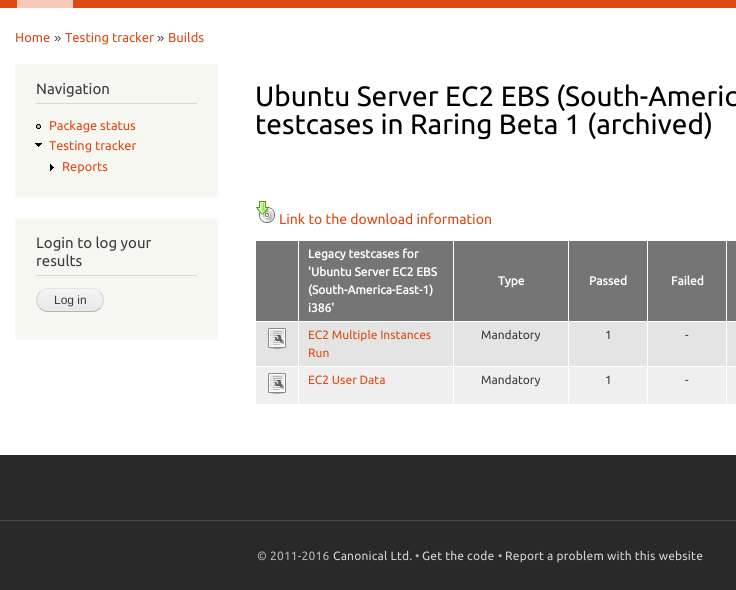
import math
import cairo

surface = cairo.ImageSurface(cairo.FORMAT_RGB24, 736, 590)
ctx = cairo.Context(surface)
options = cairo.FontOptions()
options.set_hint_metrics(cairo.HINT_METRICS_OFF)
options.set_hint_style(cairo.HINT_STYLE_NONE)
ctx.set_font_options(options)
ctx.set_miter_limit(4)


def spaced_text(x, y, s, letter, word):
    ctx.move_to(x, y)
    for ch in s:
        ctx.show_text(ch)
        ctx.rel_move_to(letter + word * (ch == ' '), 0)


def picture(path, x, y, w, h):
    ctx.save()
    ctx.set_source_surface(cairo.ImageSurface.create_from_png(path), x, y)
    ctx.rectangle(x, y, w, h)
    ctx.fill()
    ctx.restore()


ctx.set_source_rgb(1, 1, 1)
ctx.paint()
ctx.set_source_rgb(0.867, 0.282, 0.078)
ctx.rectangle(0, 0, 736, 8)
ctx.fill()
ctx.set_source_rgb(0.961, 0.784, 0.725)
ctx.rectangle(17, 0, 56, 8)
ctx.fill()
ctx.select_font_face("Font")
ctx.set_font_size(13)
ctx.set_source_rgb(0.867, 0.282, 0.075)
ctx.move_to(15, 42)
ctx.show_text("Home")
ctx.select_font_face("Liberation Sans")
ctx.set_source_rgb(0.231, 0.231, 0.231)
ctx.move_to(54, 42)
ctx.show_text("»")
ctx.select_font_face("Font")
ctx.set_source_rgb(0.867, 0.282, 0.075)
ctx.move_to(65, 42)
ctx.show_text("Testing tracker")
ctx.select_font_face("Liberation Sans")
ctx.set_source_rgb(0.231, 0.231, 0.231)
ctx.move_to(157, 42)
ctx.show_text("»")
ctx.select_font_face("Font")
ctx.set_source_rgb(0.867, 0.282, 0.075)
ctx.move_to(168, 42)
ctx.show_text("Builds")
ctx.set_source_rgb(0.965, 0.965, 0.949)
ctx.rectangle(15.5, 64.5, 202, 133)
ctx.fill_preserve()
ctx.set_source_rgb(0.976, 0.976, 0.976)
ctx.set_line_width(1)
ctx.stroke()
ctx.set_source_rgb(0.839, 0.839, 0.839)
ctx.rectangle(36, 103, 161, 1)
ctx.fill()
ctx.set_font_size(15)
ctx.set_source_rgb(0.231, 0.231, 0.231)
ctx.move_to(36, 94)
ctx.show_text("Navigation")
picture("img1.png", 36, 124, 5, 5)
ctx.set_font_size(12.75)
ctx.set_source_rgb(0.867, 0.282, 0.075)
ctx.move_to(49, 130)
ctx.show_text("Package status")
picture("img2.png", 35, 143, 7, 4)
ctx.move_to(49, 150)
ctx.show_text("Testing tracker")
picture("img3.png", 50, 164, 4, 7)
ctx.move_to(62, 171)
ctx.show_text("Reports")
ctx.set_source_rgb(0.965, 0.965, 0.949)
ctx.rectangle(15.5, 218.5, 202, 121)
ctx.fill_preserve()
ctx.set_source_rgb(0.976, 0.976, 0.976)
ctx.stroke()
ctx.set_source_rgb(0.839, 0.839, 0.839)
ctx.rectangle(36, 275, 161, 1)
ctx.fill()
ctx.set_font_size(15)
ctx.set_source_rgb(0.231, 0.231, 0.231)
ctx.move_to(36, 248)
ctx.show_text("Login to log your")
ctx.move_to(36, 266)
ctx.show_text("results")
picture("img4.png", 36, 289, 68, 23)
ctx.new_path()
ctx.move_to(40, 292)
ctx.curve_to(42, 289.5, 45, 288.5, 48, 288.5)
ctx.line_to(92, 288.5)
ctx.curve_to(95, 288.5, 98, 289.5, 100, 292)
ctx.set_source_rgb(0.894, 0.894, 0.894)
ctx.stroke()
ctx.new_path()
ctx.move_to(100, 292)
ctx.curve_to(104.5, 296.5, 104.5, 303.5, 100, 308)
ctx.set_source_rgb(0.824, 0.824, 0.824)
ctx.stroke()
ctx.new_path()
ctx.move_to(100, 308)
ctx.curve_to(98, 310.5, 95, 311.5, 92, 311.5)
ctx.line_to(48, 311.5)
ctx.curve_to(45, 311.5, 42, 310.5, 40, 308)
ctx.set_source_rgb(0.706, 0.706, 0.706)
ctx.stroke()
ctx.new_path()
ctx.move_to(40, 308)
ctx.curve_to(35.5, 303.5, 35.5, 296.5, 40, 292)
ctx.set_source_rgb(0.824, 0.824, 0.824)
ctx.stroke()
ctx.select_font_face("Liberation Sans")
ctx.set_font_size(12)
ctx.set_source_rgb(0.231, 0.231, 0.231)
ctx.move_to(54, 304)
ctx.show_text("Log in")
ctx.select_font_face("Font")
ctx.set_font_size(28)
ctx.set_source_rgb(0, 0, 0)
ctx.move_to(255, 106)
ctx.show_text("Ubuntu Server EC2 EBS (South-Americ")
ctx.move_to(255, 134)
ctx.show_text("testcases in Raring Beta 1 (archived)")
picture("img5.png", 256, 201, 19, 22)
ctx.set_font_size(14)
ctx.set_source_rgb(0.867, 0.282, 0.075)
ctx.move_to(279, 224)
ctx.show_text("Link to the download information")
ctx.set_source_rgb(0.459, 0.459, 0.459)
ctx.rectangle(256, 241, 42, 80)
ctx.fill()
ctx.rectangle(299, 241, 154, 80)
ctx.fill()
ctx.select_font_face("Font", cairo.FONT_SLANT_NORMAL, cairo.FONT_WEIGHT_BOLD)
ctx.set_font_size(12)
ctx.set_source_rgb(1, 1, 1)
ctx.move_to(308, 258)
ctx.show_text("Legacy testcases for")
ctx.move_to(308, 276)
ctx.show_text("'Ubuntu Server EC2 EBS")
ctx.move_to(308, 294)
ctx.show_text("(South-America-East-1)")
ctx.move_to(308, 312)
ctx.show_text("i386'")
ctx.set_source_rgb(0.459, 0.459, 0.459)
ctx.rectangle(454, 241, 114, 80)
ctx.fill()
ctx.set_source_rgb(1, 1, 1)
ctx.move_to(498, 285)
ctx.show_text("Type")
ctx.set_source_rgb(0.459, 0.459, 0.459)
ctx.rectangle(569, 241, 78, 80)
ctx.fill()
ctx.set_source_rgb(1, 1, 1)
ctx.move_to(589, 285)
ctx.show_text("Passed")
ctx.set_source_rgb(0.459, 0.459, 0.459)
ctx.rectangle(648, 241, 78, 80)
ctx.fill()
ctx.set_source_rgb(1, 1, 1)
ctx.move_to(671, 285)
ctx.show_text("Failed")
ctx.set_source_rgb(0.459, 0.459, 0.459)
ctx.rectangle(727, 241, 9, 80)
ctx.fill()
ctx.set_source_rgb(0.894, 0.894, 0.894)
ctx.rectangle(256, 322, 480, 44)
ctx.fill()
picture("img6.png", 268, 328, 18, 21)
ctx.select_font_face("Font")
ctx.set_source_rgb(0.867, 0.282, 0.075)
ctx.move_to(308, 339)
ctx.show_text("EC2 Multiple Instances")
ctx.move_to(308, 357)
ctx.show_text("Run")
ctx.set_source_rgb(0.231, 0.231, 0.231)
ctx.move_to(481, 339)
ctx.show_text("Mandatory")
ctx.move_to(605, 339)
ctx.show_text("1")
ctx.move_to(685, 339)
ctx.show_text("-")
ctx.set_source_rgb(0.937, 0.937, 0.937)
ctx.rectangle(256, 367, 480, 37)
ctx.fill()
picture("img7.png", 268, 373, 18, 21)
ctx.set_source_rgb(1, 1, 1)
ctx.rectangle(298, 321, 1, 84)
ctx.fill()
ctx.set_source_rgb(0.867, 0.282, 0.075)
ctx.move_to(308, 384)
ctx.show_text("EC2 User Data")
ctx.set_source_rgb(1, 1, 1)
ctx.rectangle(453, 321, 1, 84)
ctx.fill()
ctx.set_source_rgb(0.231, 0.231, 0.231)
ctx.move_to(481, 384)
ctx.show_text("Mandatory")
ctx.set_source_rgb(1, 1, 1)
ctx.rectangle(568, 321, 1, 84)
ctx.fill()
ctx.set_source_rgb(0.231, 0.231, 0.231)
ctx.move_to(605, 384)
ctx.show_text("1")
ctx.set_source_rgb(1, 1, 1)
ctx.rectangle(647, 321, 1, 84)
ctx.fill()
ctx.set_source_rgb(0.231, 0.231, 0.231)
ctx.move_to(685, 384)
ctx.show_text("-")
ctx.set_source_rgb(1, 1, 1)
ctx.rectangle(726, 321, 1, 84)
ctx.fill()
ctx.set_source_rgb(0.161, 0.161, 0.161)
ctx.rectangle(0, 455, 736, 135)
ctx.fill()
ctx.set_source_rgb(0.286, 0.286, 0.286)
ctx.rectangle(0, 520, 736, 1)
ctx.fill()
ctx.set_source_rgb(0.706, 0.706, 0.706)
spaced_text(257, 560, "© 2011-2016", 0.2, 0)
ctx.set_source_rgb(0.831, 0.831, 0.831)
spaced_text(333, 560, "Canonical Ltd.", 0.2, 0)
ctx.set_source_rgb(0.706, 0.706, 0.706)
spaced_text(415, 560, "•", 0.2, 0)
ctx.set_source_rgb(0.831, 0.831, 0.831)
spaced_text(422, 560, "Get the code", 0.2, 0)
ctx.set_source_rgb(0.706, 0.706, 0.706)
spaced_text(498, 560, "•", 0.2, 0)
ctx.set_source_rgb(0.831, 0.831, 0.831)
spaced_text(505, 560, "Report a problem with this website", 0.2, 0)
surface.write_to_png("page.png")
